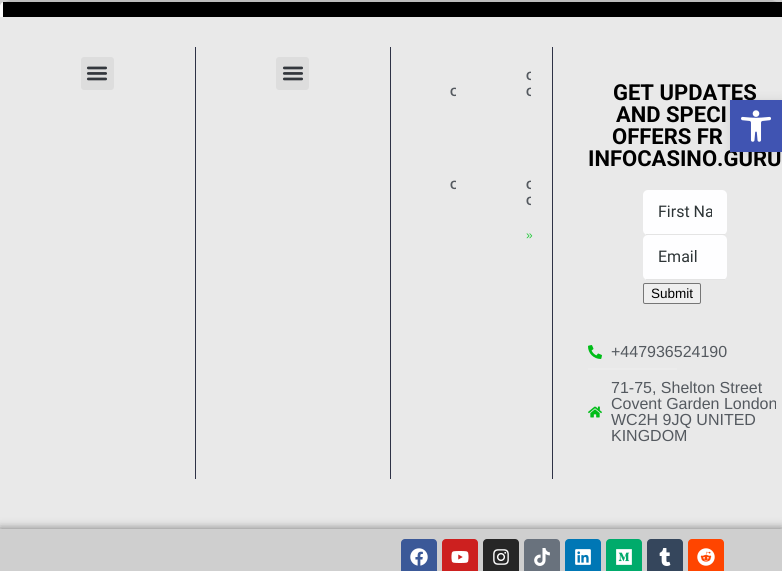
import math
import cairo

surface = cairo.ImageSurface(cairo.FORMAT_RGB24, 782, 571)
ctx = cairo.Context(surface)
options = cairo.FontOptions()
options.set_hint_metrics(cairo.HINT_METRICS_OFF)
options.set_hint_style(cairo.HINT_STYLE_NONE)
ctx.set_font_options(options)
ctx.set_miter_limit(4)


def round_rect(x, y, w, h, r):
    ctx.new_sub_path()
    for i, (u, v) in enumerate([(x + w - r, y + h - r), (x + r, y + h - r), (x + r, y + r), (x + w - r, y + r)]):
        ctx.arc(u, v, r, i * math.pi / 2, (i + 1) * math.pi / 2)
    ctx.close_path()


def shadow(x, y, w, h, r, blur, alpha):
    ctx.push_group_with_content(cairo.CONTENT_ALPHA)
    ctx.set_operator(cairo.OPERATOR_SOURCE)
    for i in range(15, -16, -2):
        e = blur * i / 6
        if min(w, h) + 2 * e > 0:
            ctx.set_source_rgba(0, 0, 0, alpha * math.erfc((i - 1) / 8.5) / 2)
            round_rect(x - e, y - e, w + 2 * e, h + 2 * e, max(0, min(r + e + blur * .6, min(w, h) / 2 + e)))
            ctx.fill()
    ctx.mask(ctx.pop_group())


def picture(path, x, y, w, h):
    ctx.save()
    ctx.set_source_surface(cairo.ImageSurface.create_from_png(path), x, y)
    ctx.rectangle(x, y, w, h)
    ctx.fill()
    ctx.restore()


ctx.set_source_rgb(0.988, 0.988, 0.988)
ctx.paint()
ctx.save()
ctx.set_fill_rule(cairo.FILL_RULE_EVEN_ODD)
ctx.new_path()
ctx.move_to(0, 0)
ctx.line_to(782, 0)
ctx.line_to(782, 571)
ctx.line_to(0, 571)
ctx.close_path()
ctx.move_to(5, 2)
ctx.line_to(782, 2)
ctx.line_to(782, 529)
ctx.line_to(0, 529)
ctx.line_to(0, 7)
ctx.curve_to(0, 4, 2, 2, 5, 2)
ctx.close_path()
ctx.clip()
ctx.set_source_rgb(0, 0, 0)
shadow(0, 2, 782, 527, 5, 17, 0.5)
ctx.restore()
ctx.set_source_rgb(0.914, 0.914, 0.914)
ctx.new_path()
ctx.move_to(5, 17)
ctx.line_to(782, 17)
ctx.line_to(782, 529)
ctx.line_to(0, 529)
ctx.line_to(0, 17)
ctx.close_path()
ctx.fill()
ctx.set_source_rgb(0, 0, 0)
ctx.rectangle(3, 2, 779, 15)
ctx.fill()
ctx.set_source_rgb(0.18, 0.196, 0.275)
ctx.rectangle(195, 47, 1, 432)
ctx.fill()
ctx.set_source_rgb(0.867, 0.867, 0.867)
round_rect(81, 57, 33, 33, 3)
ctx.fill()
picture("img1.png", 86, 66, 21, 15)
ctx.set_source_rgb(0.18, 0.196, 0.275)
ctx.rectangle(390, 47, 1, 432)
ctx.fill()
ctx.set_source_rgb(0.867, 0.867, 0.867)
round_rect(276, 57, 33, 33, 3)
ctx.fill()
picture("img1.png", 282, 66, 21, 15)
ctx.set_source_rgb(0.18, 0.196, 0.275)
ctx.rectangle(552, 47, 1, 432)
ctx.fill()
ctx.save()
ctx.rectangle(412, 68, 44, 77)
ctx.clip()
ctx.select_font_face("Liberation Sans", cairo.FONT_SLANT_NORMAL, cairo.FONT_WEIGHT_BOLD)
ctx.set_font_size(12)
ctx.set_source_rgb(0.329, 0.349, 0.373)
ctx.move_to(450, 96)
ctx.show_text("C")
ctx.restore()
ctx.save()
ctx.rectangle(487, 68, 44, 77)
ctx.clip()
ctx.select_font_face("Liberation Sans", cairo.FONT_SLANT_NORMAL, cairo.FONT_WEIGHT_BOLD)
ctx.set_font_size(12)
ctx.set_source_rgb(0.329, 0.349, 0.373)
ctx.move_to(526, 80)
ctx.show_text("C")
ctx.move_to(526, 96)
ctx.show_text("C")
ctx.restore()
ctx.save()
ctx.rectangle(412, 177, 44, 66)
ctx.clip()
ctx.select_font_face("Liberation Sans", cairo.FONT_SLANT_NORMAL, cairo.FONT_WEIGHT_BOLD)
ctx.set_font_size(12)
ctx.set_source_rgb(0.329, 0.349, 0.373)
ctx.move_to(450, 189)
ctx.show_text("C")
ctx.restore()
ctx.save()
ctx.rectangle(487, 177, 44, 66)
ctx.clip()
ctx.select_font_face("Liberation Sans", cairo.FONT_SLANT_NORMAL, cairo.FONT_WEIGHT_BOLD)
ctx.set_font_size(12)
ctx.set_source_rgb(0.329, 0.349, 0.373)
ctx.move_to(526, 189)
ctx.show_text("C")
ctx.move_to(526, 205)
ctx.show_text("C")
ctx.restore()
ctx.select_font_face("Liberation Sans")
ctx.set_font_size(12)
ctx.set_source_rgb(0.157, 0.796, 0.247)
ctx.move_to(526, 239)
ctx.show_text("»")
ctx.select_font_face("Roboto", cairo.FONT_SLANT_NORMAL, cairo.FONT_WEIGHT_BOLD)
ctx.set_font_size(22)
ctx.set_source_rgb(0, 0, 0)
ctx.move_to(613, 100)
ctx.show_text("GET UPDATES")
ctx.move_to(616, 122)
ctx.show_text("AND SPECI")
ctx.move_to(612, 144)
ctx.show_text("OFFERS FR")
ctx.move_to(588, 166)
ctx.show_text("INFOCASINO.GURU")
ctx.set_source_rgb(0.996, 0.996, 1)
round_rect(643, 190, 84, 45, 5)
ctx.fill()
ctx.set_source_rgb(0.894, 0.894, 0.894)
ctx.rectangle(646, 234, 79, 1)
ctx.fill()
ctx.save()
ctx.rectangle(658, 202, 54, 19)
ctx.clip()
ctx.select_font_face("Roboto")
ctx.set_font_size(16)
ctx.set_source_rgb(0.176, 0.204, 0.212)
ctx.move_to(658, 217)
ctx.show_text("First Na")
ctx.restore()
ctx.set_source_rgb(0.996, 0.996, 1)
round_rect(643, 235, 84, 45, 5)
ctx.fill()
ctx.set_source_rgb(0.894, 0.894, 0.894)
ctx.rectangle(646, 279, 79, 1)
ctx.fill()
ctx.select_font_face("Roboto")
ctx.set_font_size(16)
ctx.set_source_rgb(0.176, 0.204, 0.212)
ctx.move_to(658, 262)
ctx.show_text("Email")
ctx.set_source_rgb(0.937, 0.937, 0.937)
round_rect(643.5, 283.5, 57, 20, 1.5)
ctx.fill_preserve()
ctx.set_source_rgb(0.463, 0.463, 0.463)
ctx.set_line_width(1)
ctx.stroke()
ctx.select_font_face("Liberation Sans")
ctx.set_font_size(13.5)
ctx.set_source_rgb(0, 0, 0)
ctx.move_to(651, 298)
ctx.show_text("Submit")
picture("img2.png", 588, 345, 14, 14)
ctx.set_font_size(16)
ctx.set_source_rgb(0.329, 0.349, 0.373)
ctx.move_to(611, 357)
ctx.show_text("+447936524190")
ctx.set_source_rgb(0.925, 0.925, 0.925)
ctx.rectangle(588, 368, 89, 2)
ctx.fill()
picture("img3.png", 588, 406, 14, 12)
ctx.set_source_rgb(0.329, 0.349, 0.373)
ctx.move_to(611, 393)
ctx.show_text("71-75, Shelton Street")
ctx.move_to(611, 409)
ctx.show_text("Covent Garden London")
ctx.move_to(611, 425)
ctx.show_text("WC2H 9JQ UNITED")
ctx.move_to(611, 441)
ctx.show_text("KINGDOM")
ctx.set_source_rgb(0, 0, 0)
shadow(0, 529, 782, 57, 0, 5, 0.5)
ctx.set_source_rgb(0.812, 0.812, 0.812)
ctx.rectangle(0, 529, 782, 42)
ctx.fill()
ctx.set_source_rgb(0.231, 0.349, 0.596)
round_rect(401, 539, 36, 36, 4)
ctx.fill()
picture("img4.png", 410, 548, 18, 18)
ctx.set_source_rgb(0.804, 0.125, 0.122)
round_rect(442, 539, 36, 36, 4)
ctx.fill()
picture("img5.png", 451, 551, 18, 12)
ctx.set_source_rgb(0.149, 0.149, 0.149)
round_rect(483, 539, 36, 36, 4)
ctx.fill()
picture("img6.png", 493, 549, 16, 16)
ctx.set_source_rgb(0.412, 0.447, 0.49)
round_rect(524, 539, 36, 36, 4)
ctx.fill()
picture("img7.png", 534, 548, 16, 18)
ctx.set_source_rgb(0, 0.467, 0.71)
round_rect(565, 539, 36, 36, 4)
ctx.fill()
picture("img8.png", 575, 549, 16, 16)
ctx.set_source_rgb(0, 0.671, 0.42)
round_rect(606, 539, 36, 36, 4)
ctx.fill()
picture("img9.png", 616, 549, 16, 16)
ctx.set_source_rgb(0.208, 0.275, 0.361)
round_rect(647, 539, 36, 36, 4)
ctx.fill()
picture("img10.png", 659, 548, 12, 18)
ctx.set_source_rgb(1, 0.271, 0)
round_rect(688, 539, 36, 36, 4)
ctx.fill()
picture("img11.png", 697, 548, 18, 18)
ctx.set_source_rgb(0, 0, 0)
shadow(730, 100, 52, 52, 0, 5, 0.1)
ctx.set_source_rgb(0.251, 0.329, 0.698)
ctx.rectangle(730, 100, 52, 52)
ctx.fill()
picture("img12.png", 741, 110, 30, 32)
surface.write_to_png("page.png")
